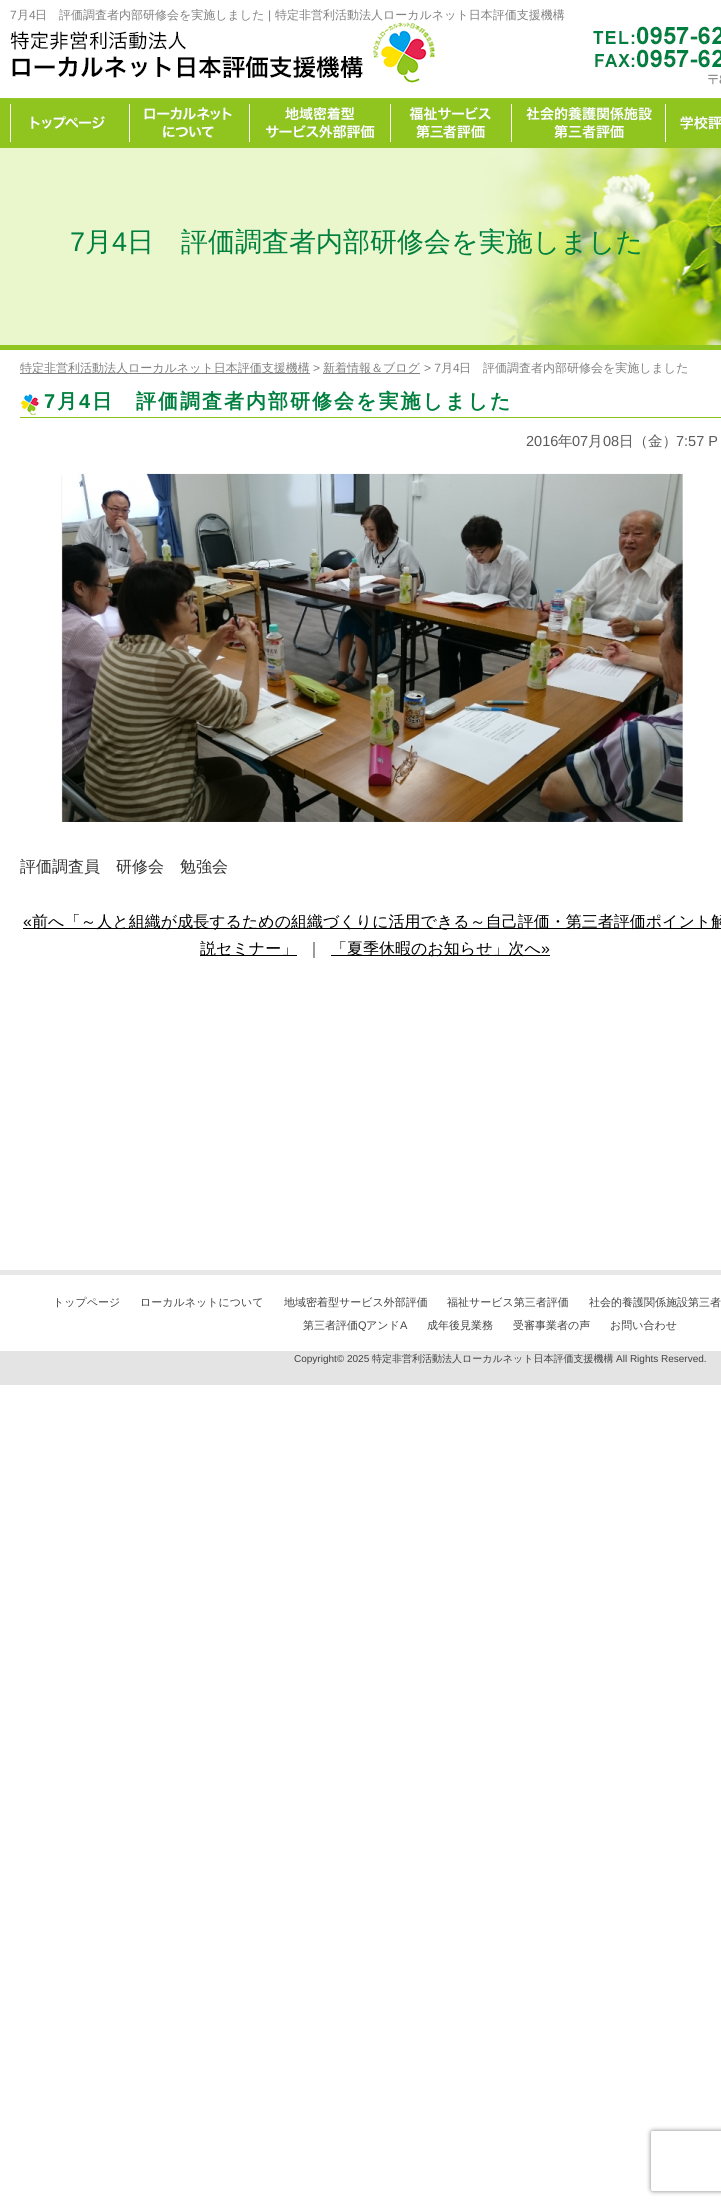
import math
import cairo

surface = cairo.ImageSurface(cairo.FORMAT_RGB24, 721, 2205)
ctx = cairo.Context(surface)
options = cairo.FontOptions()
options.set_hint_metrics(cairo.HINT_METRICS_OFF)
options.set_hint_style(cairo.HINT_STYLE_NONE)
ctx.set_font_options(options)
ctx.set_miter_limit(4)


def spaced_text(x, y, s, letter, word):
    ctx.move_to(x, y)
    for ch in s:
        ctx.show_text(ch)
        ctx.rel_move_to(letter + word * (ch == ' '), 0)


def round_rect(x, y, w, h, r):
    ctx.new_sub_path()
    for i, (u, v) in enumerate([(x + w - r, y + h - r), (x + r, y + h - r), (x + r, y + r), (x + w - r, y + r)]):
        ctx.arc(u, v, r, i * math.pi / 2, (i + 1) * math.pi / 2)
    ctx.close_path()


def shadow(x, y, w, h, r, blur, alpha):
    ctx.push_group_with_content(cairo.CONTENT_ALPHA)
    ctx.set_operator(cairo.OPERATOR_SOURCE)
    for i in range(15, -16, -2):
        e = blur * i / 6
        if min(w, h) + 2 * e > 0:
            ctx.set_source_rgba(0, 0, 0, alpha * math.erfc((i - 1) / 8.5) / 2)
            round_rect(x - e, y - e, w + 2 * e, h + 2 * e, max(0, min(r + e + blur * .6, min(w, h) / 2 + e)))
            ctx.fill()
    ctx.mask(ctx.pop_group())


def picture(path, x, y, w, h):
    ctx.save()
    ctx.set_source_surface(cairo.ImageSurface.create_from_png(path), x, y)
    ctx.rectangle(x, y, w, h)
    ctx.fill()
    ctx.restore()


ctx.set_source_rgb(1, 1, 1)
ctx.paint()
picture("img1.png", 0, 98, 721, 252)
ctx.select_font_face("Liberation Sans")
ctx.set_font_size(12)
ctx.set_source_rgb(0.502, 0.502, 0.502)
ctx.move_to(10, 19)
ctx.show_text("7")
ctx.select_font_face("WenQuanYi Zen Hei Medium")
ctx.move_to(17, 19)
ctx.show_text("月")
ctx.select_font_face("Liberation Sans")
ctx.move_to(29, 19)
ctx.show_text("4")
ctx.select_font_face("WenQuanYi Zen Hei Medium")
ctx.move_to(35, 19)
ctx.show_text("日　評価調査者内部研修会を実施しました")
ctx.select_font_face("Liberation Sans")
ctx.move_to(268, 19)
ctx.show_text("|")
ctx.select_font_face("WenQuanYi Zen Hei Medium")
ctx.move_to(275, 19)
ctx.show_text("特定非営利活動法人ローカルネット日本評価支援機構")
picture("img2.png", 10, 22, 425, 61)
picture("img3.png", 593, 26, 128, 59)
picture("img4.png", 10, 98, 120, 44)
picture("img5.png", 130, 98, 120, 44)
picture("img6.png", 250, 98, 141, 44)
picture("img7.png", 391, 98, 121, 44)
picture("img8.png", 512, 98, 154, 44)
picture("img9.png", 666, 98, 55, 32)
ctx.select_font_face("Liberation Sans")
ctx.set_font_size(27)
ctx.set_source_rgb(0, 0.502, 0.243)
ctx.move_to(70, 251)
ctx.show_text("7")
ctx.select_font_face("WenQuanYi Zen Hei Medium")
ctx.move_to(85, 251)
ctx.show_text("月")
ctx.select_font_face("Liberation Sans")
ctx.move_to(112, 251)
ctx.show_text("4")
ctx.select_font_face("WenQuanYi Zen Hei Medium")
ctx.move_to(127, 251)
ctx.show_text("日　評価調査者内部研修会を実施しました")
ctx.set_source_rgb(0.502, 0.502, 0.502)
ctx.rectangle(20, 373, 290, 1)
ctx.fill()
ctx.set_font_size(12)
ctx.move_to(20, 372)
ctx.show_text("特定非営利活動法人ローカルネット日本評価支援機構")
ctx.select_font_face("Liberation Sans")
ctx.move_to(313, 372)
ctx.show_text(">")
ctx.rectangle(323, 373, 97, 1)
ctx.fill()
ctx.select_font_face("WenQuanYi Zen Hei Medium")
ctx.move_to(323, 372)
ctx.show_text("新着情報＆ブログ")
ctx.select_font_face("Liberation Sans")
ctx.move_to(424, 372)
ctx.show_text("> 7")
ctx.select_font_face("WenQuanYi Zen Hei Medium")
ctx.move_to(441, 372)
ctx.show_text("月")
ctx.select_font_face("Liberation Sans")
ctx.move_to(453, 372)
ctx.show_text("4")
ctx.select_font_face("WenQuanYi Zen Hei Medium")
ctx.move_to(459, 372)
ctx.show_text("日　評価調査者内部研修会を実施しました")
picture("img10.png", 20, 394, 701, 24)
ctx.select_font_face("Liberation Sans", cairo.FONT_SLANT_NORMAL, cairo.FONT_WEIGHT_BOLD)
ctx.set_font_size(20)
ctx.set_source_rgb(0, 0.502, 0.243)
spaced_text(44, 408, "7", 2, 0)
ctx.select_font_face("WenQuanYi Zen Hei", cairo.FONT_SLANT_NORMAL, cairo.FONT_WEIGHT_BOLD)
spaced_text(57, 408, "月", 2, 0)
ctx.select_font_face("Liberation Sans", cairo.FONT_SLANT_NORMAL, cairo.FONT_WEIGHT_BOLD)
spaced_text(79, 408, "4", 2, 0)
ctx.select_font_face("WenQuanYi Zen Hei", cairo.FONT_SLANT_NORMAL, cairo.FONT_WEIGHT_BOLD)
spaced_text(92, 408, "日　評価調査者内部研修会を実施しました", 2, 0)
ctx.select_font_face("Liberation Sans")
ctx.set_font_size(14.5)
ctx.set_source_rgb(0.353, 0.353, 0.353)
ctx.move_to(526, 446)
ctx.show_text("2016")
ctx.select_font_face("WenQuanYi Zen Hei Medium")
ctx.move_to(558, 446)
ctx.show_text("年")
ctx.select_font_face("Liberation Sans")
ctx.move_to(572, 446)
ctx.show_text("07")
ctx.select_font_face("WenQuanYi Zen Hei Medium")
ctx.move_to(588, 446)
ctx.show_text("月")
ctx.select_font_face("Liberation Sans")
ctx.move_to(603, 446)
ctx.show_text("08")
ctx.select_font_face("WenQuanYi Zen Hei Medium")
ctx.move_to(619, 446)
ctx.show_text("日（金）")
ctx.select_font_face("Liberation Sans")
ctx.move_to(676, 446)
ctx.show_text("7:57 P")
picture("img11.png", 61, 473, 622, 349)
ctx.select_font_face("WenQuanYi Zen Hei Medium")
ctx.set_font_size(16)
ctx.set_source_rgb(0.2, 0.2, 0.2)
ctx.move_to(20, 872)
ctx.show_text("評価調査員　研修会　勉強会")
ctx.select_font_face("Liberation Sans")
ctx.set_source_rgb(0, 0, 0)
ctx.move_to(23, 927)
ctx.show_text("«")
ctx.rectangle(23, 928, 698, 1)
ctx.fill()
ctx.select_font_face("WenQuanYi Zen Hei Medium")
ctx.move_to(32, 927)
ctx.show_text("前へ「～人と組織が成長するための組織づくりに活用できる～自己評価・第三者評価ポイント解")
ctx.rectangle(200, 955, 97, 1)
ctx.fill()
ctx.move_to(200, 954)
ctx.show_text("説セミナー」")
ctx.set_source_rgb(0.2, 0.2, 0.2)
ctx.move_to(306, 954)
ctx.show_text("｜")
ctx.set_source_rgb(0, 0, 0)
ctx.rectangle(331, 955, 219, 1)
ctx.fill()
ctx.move_to(331, 954)
ctx.show_text("「夏季休暇のお知らせ」次へ")
ctx.select_font_face("Liberation Sans")
ctx.move_to(541, 954)
ctx.show_text("»")
ctx.set_source_rgb(0.894, 0.894, 0.894)
ctx.rectangle(0, 1351, 721, 34)
ctx.fill()
ctx.set_source_rgb(0.91, 0.91, 0.91)
ctx.rectangle(0, 1270, 721, 5)
ctx.fill()
ctx.select_font_face("WenQuanYi Zen Hei Medium")
ctx.set_font_size(11)
ctx.set_source_rgb(0.259, 0.259, 0.259)
ctx.move_to(53, 1306)
ctx.show_text("トップページ")
ctx.move_to(140, 1306)
ctx.show_text("ローカルネットについて")
ctx.move_to(284, 1306)
ctx.show_text("地域密着型サービス外部評価")
ctx.move_to(447, 1306)
ctx.show_text("福祉サービス第三者評価")
ctx.move_to(589, 1306)
ctx.show_text("社会的養護関係施設第三者")
ctx.move_to(303, 1329)
ctx.show_text("第三者評価")
ctx.select_font_face("Liberation Sans")
ctx.move_to(358, 1329)
ctx.show_text("Q")
ctx.select_font_face("WenQuanYi Zen Hei Medium")
ctx.move_to(366, 1329)
ctx.show_text("アンド")
ctx.select_font_face("Liberation Sans")
ctx.move_to(400, 1329)
ctx.show_text("A")
ctx.select_font_face("WenQuanYi Zen Hei Medium")
ctx.move_to(427, 1329)
ctx.show_text("成年後見業務")
ctx.move_to(513, 1329)
ctx.show_text("受審事業者の声")
ctx.move_to(610, 1329)
ctx.show_text("お問い合わせ")
ctx.select_font_face("Liberation Sans")
ctx.set_font_size(10)
ctx.move_to(294, 1362)
ctx.show_text("Copyright© 2025")
ctx.select_font_face("WenQuanYi Zen Hei Medium")
ctx.move_to(372, 1362)
ctx.show_text("特定非営利活動法人ローカルネット日本評価支援機構")
ctx.select_font_face("Liberation Sans")
ctx.move_to(616, 1362)
ctx.show_text("All Rights Reserved.")
ctx.save()
ctx.set_fill_rule(cairo.FILL_RULE_EVEN_ODD)
ctx.new_path()
ctx.move_to(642, 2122)
ctx.line_to(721, 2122)
ctx.line_to(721, 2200)
ctx.line_to(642, 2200)
ctx.close_path()
ctx.move_to(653, 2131)
ctx.line_to(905, 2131)
ctx.curve_to(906, 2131, 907, 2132, 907, 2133)
ctx.line_to(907, 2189)
ctx.curve_to(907, 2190, 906, 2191, 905, 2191)
ctx.line_to(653, 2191)
ctx.curve_to(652, 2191, 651, 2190, 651, 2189)
ctx.line_to(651, 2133)
ctx.curve_to(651, 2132, 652, 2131, 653, 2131)
ctx.close_path()
ctx.clip()
ctx.set_source_rgb(0.502, 0.502, 0.502)
shadow(651, 2131, 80, 60, 2, 2.5, 1)
ctx.restore()
surface.write_to_png("page.png")
